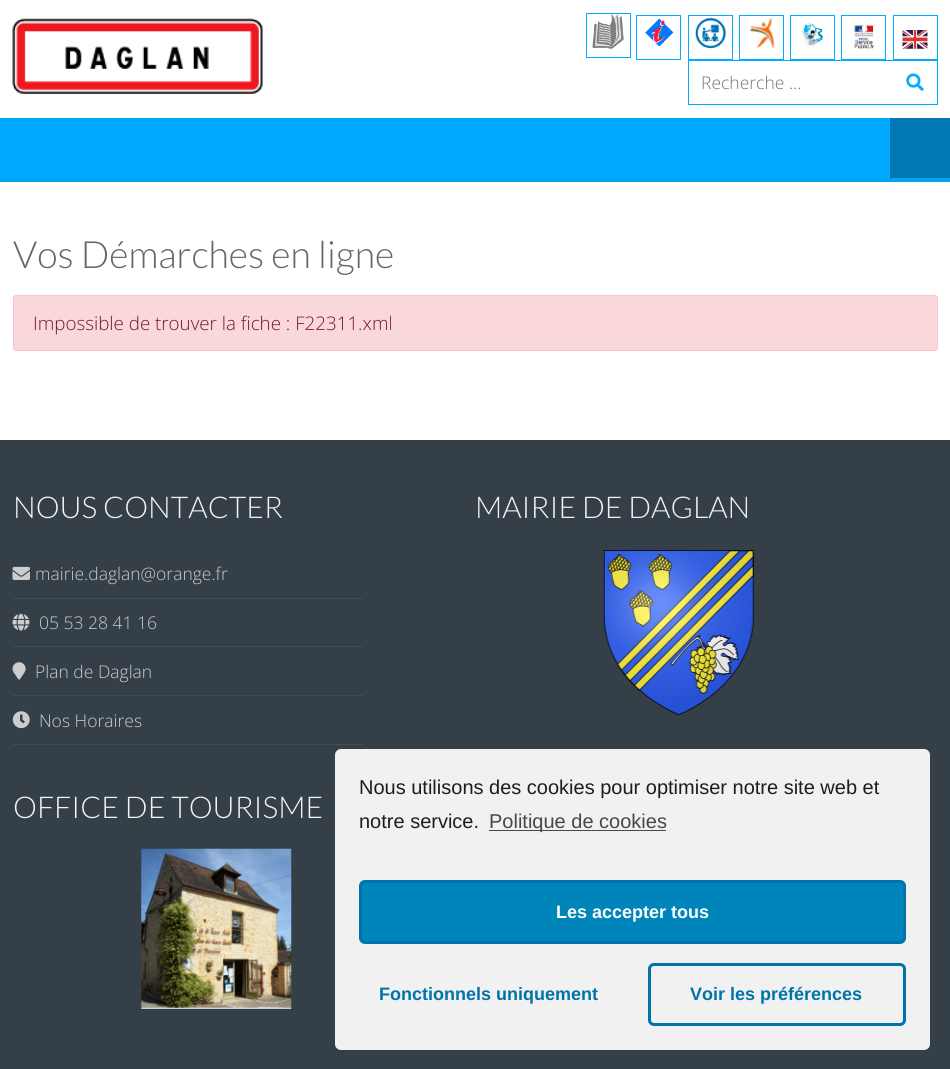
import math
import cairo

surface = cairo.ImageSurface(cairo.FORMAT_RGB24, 950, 1069)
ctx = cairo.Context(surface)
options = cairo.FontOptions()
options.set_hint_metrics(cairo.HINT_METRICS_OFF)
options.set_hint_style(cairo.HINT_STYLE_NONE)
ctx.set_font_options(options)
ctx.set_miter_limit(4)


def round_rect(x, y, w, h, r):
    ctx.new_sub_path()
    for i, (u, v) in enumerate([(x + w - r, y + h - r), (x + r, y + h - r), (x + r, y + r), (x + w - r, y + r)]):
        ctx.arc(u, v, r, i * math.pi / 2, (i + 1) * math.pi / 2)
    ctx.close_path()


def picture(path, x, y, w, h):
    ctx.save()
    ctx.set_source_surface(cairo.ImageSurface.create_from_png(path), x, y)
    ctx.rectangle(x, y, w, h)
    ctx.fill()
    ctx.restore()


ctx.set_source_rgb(1, 1, 1)
ctx.paint()
picture("img1.png", 12, 18, 251, 76)
ctx.rectangle(586.5, 13.5, 44, 44)
ctx.set_source_rgb(0.004, 0.682, 0.992)
ctx.set_line_width(1)
ctx.stroke()
picture("img2.png", 592, 14, 32, 35)
ctx.rectangle(636.5, 15.5, 44, 44)
ctx.stroke()
picture("img3.png", 645, 18, 29, 29)
ctx.rectangle(688.5, 15.5, 44, 44)
ctx.stroke()
picture("img4.png", 695, 17, 32, 32)
ctx.rectangle(739.5, 15.5, 44, 44)
ctx.stroke()
picture("img5.png", 750, 17, 25, 32)
ctx.rectangle(790.5, 15.5, 44, 44)
ctx.stroke()
picture("img6.png", 802, 23, 21, 24)
ctx.rectangle(841.5, 15.5, 44, 44)
ctx.stroke()
picture("img7.png", 854, 24, 21, 25)
ctx.rectangle(893.5, 15.5, 44, 44)
ctx.stroke()
picture("img8.png", 902, 30, 26, 19)
ctx.rectangle(688.5, 60.5, 249, 44)
ctx.stroke()
ctx.select_font_face("Open Sans Light")
ctx.set_font_size(17.5)
ctx.set_source_rgb(0.459, 0.459, 0.459)
ctx.move_to(701, 89)
ctx.show_text("Recherche ...")
picture("img9.png", 906, 73, 18, 18)
ctx.set_source_rgb(0, 0.671, 1)
ctx.rectangle(0, 118, 890, 60)
ctx.fill()
ctx.set_source_rgb(0.016, 0.639, 0.929)
ctx.rectangle(0, 178, 950, 4)
ctx.fill()
ctx.set_source_rgb(0, 0.471, 0.702)
ctx.rectangle(890, 118, 60, 60)
ctx.fill()
ctx.select_font_face("Lato Light")
ctx.set_font_size(37.5)
ctx.set_source_rgb(0.4, 0.4, 0.4)
ctx.move_to(13, 268)
ctx.show_text("Vos Démarches en ligne")
ctx.set_source_rgb(0.973, 0.843, 0.855)
round_rect(13.5, 295.5, 924, 55, 2.5)
ctx.fill_preserve()
ctx.set_source_rgb(0.961, 0.776, 0.796)
ctx.stroke()
ctx.select_font_face("Open Sans Light")
ctx.set_font_size(18.75)
ctx.set_source_rgb(0.447, 0.11, 0.141)
ctx.move_to(33, 330)
ctx.show_text("Impossible de trouver la fiche : F22311.xml")
ctx.set_source_rgb(0.208, 0.247, 0.278)
ctx.rectangle(0, 440, 950, 629)
ctx.fill()
ctx.select_font_face("Lato Light")
ctx.set_font_size(30)
ctx.set_source_rgb(0.949, 0.953, 0.957)
ctx.move_to(13, 518)
ctx.show_text("NOUS CONTACTER")
ctx.set_source_rgb(0.271, 0.302, 0.329)
ctx.rectangle(13, 598, 350, 1)
ctx.fill()
picture("img10.png", 12, 566, 18, 14)
ctx.select_font_face("Open Sans Light")
ctx.set_font_size(17.5)
ctx.set_source_rgb(0.8, 0.8, 0.8)
ctx.move_to(35, 580)
ctx.show_text("mairie.daglan@orange.fr")
ctx.set_source_rgb(0.271, 0.302, 0.329)
ctx.rectangle(13, 646, 350, 1)
ctx.fill()
picture("img11.png", 12, 613, 18, 18)
ctx.set_source_rgb(0.8, 0.8, 0.8)
ctx.move_to(39, 629)
ctx.show_text("05 53 28 41 16")
ctx.set_source_rgb(0.271, 0.302, 0.329)
ctx.rectangle(13, 695, 350, 1)
ctx.fill()
picture("img12.png", 12, 662, 14, 18)
ctx.set_source_rgb(0.8, 0.8, 0.8)
ctx.move_to(35, 678)
ctx.show_text("Plan de Daglan")
ctx.set_source_rgb(0.271, 0.302, 0.329)
ctx.rectangle(13, 744, 350, 1)
ctx.fill()
picture("img13.png", 12, 711, 18, 18)
ctx.set_source_rgb(0.8, 0.8, 0.8)
ctx.move_to(39, 727)
ctx.show_text("Nos Horaires")
ctx.select_font_face("Lato Light")
ctx.set_font_size(30)
ctx.set_source_rgb(0.949, 0.953, 0.957)
ctx.move_to(475, 518)
ctx.show_text("MAIRIE DE DAGLAN")
picture("img14.png", 603, 550, 151, 165)
ctx.move_to(13, 818)
ctx.show_text("OFFICE DE TOURISME")
picture("img15.png", 141, 848, 151, 161)
ctx.set_source_rgb(0.945, 0.945, 0.945)
round_rect(335, 749, 595, 301, 6)
ctx.fill()
ctx.select_font_face("Liberation Sans")
ctx.set_font_size(20)
ctx.set_source_rgb(0.098, 0.118, 0.137)
ctx.move_to(359, 794)
ctx.show_text("Nous utilisons des cookies pour optimiser notre site web et")
ctx.move_to(359, 828)
ctx.show_text("notre service.")
ctx.set_source_rgb(0.267, 0.282, 0.298)
ctx.rectangle(489, 830, 177, 1)
ctx.fill()
ctx.move_to(489, 828)
ctx.show_text("Politique de cookies")
ctx.set_source_rgb(0, 0.522, 0.729)
round_rect(360.5, 881.5, 544, 61, 4.5)
ctx.fill_preserve()
ctx.set_source_rgb(0, 0.451, 0.667)
ctx.set_line_width(3)
ctx.stroke()
ctx.select_font_face("Liberation Sans", cairo.FONT_SLANT_NORMAL, cairo.FONT_WEIGHT_BOLD)
ctx.set_font_size(18)
ctx.set_source_rgb(1, 1, 1)
ctx.move_to(556, 918)
ctx.show_text("Les accepter tous")
ctx.set_source_rgb(0, 0.451, 0.667)
ctx.move_to(379, 1000)
ctx.show_text("Fonctionnels uniquement")
round_rect(649.5, 964.5, 255, 60, 4.5)
ctx.stroke()
ctx.move_to(690, 1000)
ctx.show_text("Voir les préférences")
surface.write_to_png("page.png")
